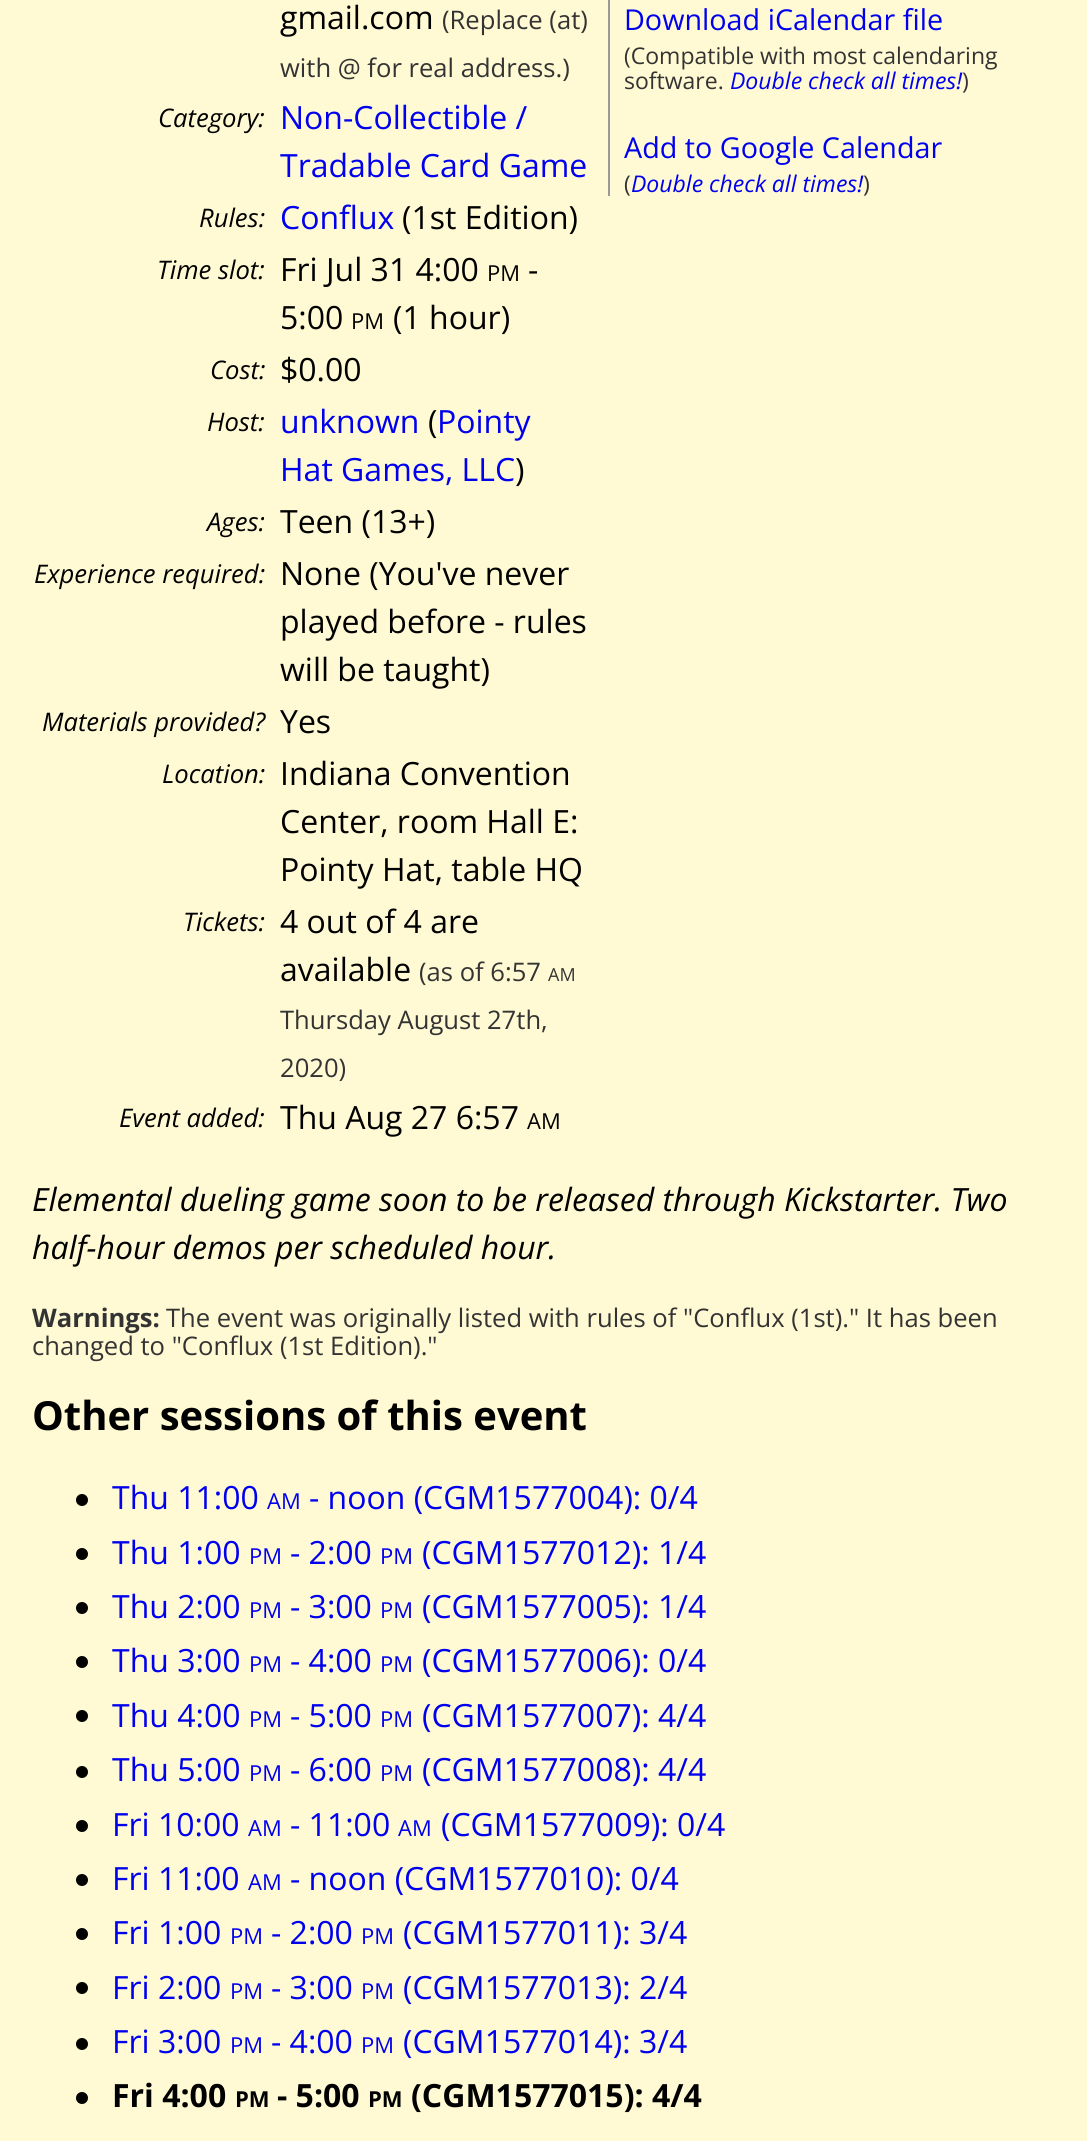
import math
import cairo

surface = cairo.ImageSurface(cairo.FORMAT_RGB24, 1087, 2141)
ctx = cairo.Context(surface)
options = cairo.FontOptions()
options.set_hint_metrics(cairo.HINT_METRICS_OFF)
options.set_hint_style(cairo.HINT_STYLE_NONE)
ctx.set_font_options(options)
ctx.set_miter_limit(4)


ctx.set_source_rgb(1, 0.98, 0.827)
ctx.paint()
ctx.select_font_face("Open Sans")
ctx.set_font_size(32)
ctx.set_source_rgb(0, 0, 0)
ctx.move_to(280, 29)
ctx.show_text("gmail.com")
ctx.set_font_size(25.6)
ctx.set_source_rgb(0.2, 0.2, 0.2)
ctx.move_to(442, 29)
ctx.show_text("(Replace (at)")
ctx.move_to(280, 77)
ctx.show_text("with @ for real address.)")
ctx.select_font_face("Open Sans", cairo.FONT_SLANT_ITALIC)
ctx.set_source_rgb(0, 0, 0)
ctx.move_to(158, 127)
ctx.show_text("Category:")
ctx.select_font_face("Open Sans")
ctx.set_font_size(32)
ctx.set_source_rgb(0, 0, 0.933)
ctx.move_to(280, 129)
ctx.show_text("Non-Collectible /")
ctx.move_to(280, 177)
ctx.show_text("Tradable Card Game")
ctx.select_font_face("Open Sans", cairo.FONT_SLANT_ITALIC)
ctx.set_font_size(25.6)
ctx.set_source_rgb(0, 0, 0)
ctx.move_to(199, 227)
ctx.show_text("Rules:")
ctx.select_font_face("Open Sans")
ctx.set_font_size(32)
ctx.set_source_rgb(0, 0, 0.933)
ctx.move_to(280, 229)
ctx.show_text("Conflux")
ctx.set_source_rgb(0, 0, 0)
ctx.move_to(402, 229)
ctx.show_text("(1st Edition)")
ctx.select_font_face("Open Sans", cairo.FONT_SLANT_ITALIC)
ctx.set_font_size(25.6)
ctx.move_to(157, 279)
ctx.show_text("Time slot:")
ctx.select_font_face("Open Sans")
ctx.set_font_size(32)
ctx.move_to(280, 281)
ctx.show_text("Fri Jul 31 4:00")
ctx.set_font_size(22)
ctx.move_to(487, 281)
ctx.show_text("PM")
ctx.set_font_size(32)
ctx.move_to(528, 281)
ctx.show_text("-")
ctx.move_to(280, 329)
ctx.show_text("5:00")
ctx.set_font_size(22)
ctx.move_to(351, 329)
ctx.show_text("PM")
ctx.set_font_size(32)
ctx.move_to(393, 329)
ctx.show_text("(1 hour)")
ctx.select_font_face("Open Sans", cairo.FONT_SLANT_ITALIC)
ctx.set_font_size(25.6)
ctx.move_to(210, 379)
ctx.show_text("Cost:")
ctx.select_font_face("Open Sans")
ctx.set_font_size(32)
ctx.move_to(280, 381)
ctx.show_text("$0.00")
ctx.select_font_face("Open Sans", cairo.FONT_SLANT_ITALIC)
ctx.set_font_size(25.6)
ctx.move_to(207, 431)
ctx.show_text("Host:")
ctx.select_font_face("Open Sans")
ctx.set_font_size(32)
ctx.set_source_rgb(0, 0, 0.933)
ctx.move_to(280, 433)
ctx.show_text("unknown")
ctx.set_source_rgb(0, 0, 0)
ctx.move_to(428, 433)
ctx.show_text("(")
ctx.set_source_rgb(0, 0, 0.933)
ctx.move_to(437, 433)
ctx.show_text("Pointy")
ctx.move_to(280, 481)
ctx.show_text("Hat Games, LLC")
ctx.set_source_rgb(0, 0, 0)
ctx.move_to(515, 481)
ctx.show_text(")")
ctx.select_font_face("Open Sans", cairo.FONT_SLANT_ITALIC)
ctx.set_font_size(25.6)
ctx.move_to(207, 531)
ctx.show_text("Ages:")
ctx.select_font_face("Open Sans")
ctx.set_font_size(32)
ctx.move_to(280, 533)
ctx.show_text("Teen (13+)")
ctx.select_font_face("Open Sans", cairo.FONT_SLANT_ITALIC)
ctx.set_font_size(25.6)
ctx.move_to(34, 583)
ctx.show_text("Experience required:")
ctx.select_font_face("Open Sans")
ctx.set_font_size(32)
ctx.move_to(280, 585)
ctx.show_text("None (You've never")
ctx.move_to(280, 633)
ctx.show_text("played before - rules")
ctx.move_to(280, 681)
ctx.show_text("will be taught)")
ctx.select_font_face("Open Sans", cairo.FONT_SLANT_ITALIC)
ctx.set_font_size(25.6)
ctx.move_to(42, 731)
ctx.show_text("Materials provided?")
ctx.select_font_face("Open Sans")
ctx.set_font_size(32)
ctx.move_to(280, 733)
ctx.show_text("Yes")
ctx.select_font_face("Open Sans", cairo.FONT_SLANT_ITALIC)
ctx.set_font_size(25.6)
ctx.move_to(162, 783)
ctx.show_text("Location:")
ctx.select_font_face("Open Sans")
ctx.set_font_size(32)
ctx.move_to(280, 785)
ctx.show_text("Indiana Convention")
ctx.move_to(280, 833)
ctx.show_text("Center, room Hall E:")
ctx.move_to(280, 881)
ctx.show_text("Pointy Hat, table HQ")
ctx.select_font_face("Open Sans", cairo.FONT_SLANT_ITALIC)
ctx.set_font_size(25.6)
ctx.move_to(183, 931)
ctx.show_text("Tickets:")
ctx.select_font_face("Open Sans")
ctx.set_font_size(32)
ctx.move_to(280, 933)
ctx.show_text("4 out of 4 are")
ctx.move_to(280, 981)
ctx.show_text("available")
ctx.set_font_size(25.6)
ctx.set_source_rgb(0.2, 0.2, 0.2)
ctx.move_to(419, 981)
ctx.show_text("(as of 6:57")
ctx.set_font_size(18)
ctx.move_to(548, 981)
ctx.show_text("AM")
ctx.set_font_size(25.6)
ctx.move_to(280, 1029)
ctx.show_text("Thursday August 27th,")
ctx.move_to(280, 1077)
ctx.show_text("2020)")
ctx.select_font_face("Open Sans", cairo.FONT_SLANT_ITALIC)
ctx.set_source_rgb(0, 0, 0)
ctx.move_to(119, 1127)
ctx.show_text("Event added:")
ctx.select_font_face("Open Sans")
ctx.set_font_size(32)
ctx.move_to(280, 1129)
ctx.show_text("Thu Aug 27 6:57")
ctx.set_font_size(22)
ctx.move_to(527, 1129)
ctx.show_text("AM")
ctx.set_source_rgb(0.6, 0.6, 0.6)
ctx.rectangle(608, 0, 2, 196)
ctx.fill()
ctx.set_font_size(28.75)
ctx.set_source_rgb(0, 0, 0.933)
ctx.move_to(624, 30)
ctx.show_text("Download iCalendar file")
ctx.set_font_size(23)
ctx.set_source_rgb(0.2, 0.2, 0.2)
ctx.move_to(624, 64)
ctx.show_text("(Compatible with most calendaring")
ctx.move_to(624, 89)
ctx.show_text("software.")
ctx.select_font_face("Open Sans", cairo.FONT_SLANT_ITALIC)
ctx.set_source_rgb(0, 0, 0.933)
ctx.move_to(730, 89)
ctx.show_text("Double check all times!")
ctx.select_font_face("Open Sans")
ctx.set_source_rgb(0.2, 0.2, 0.2)
ctx.move_to(962, 89)
ctx.show_text(")")
ctx.set_font_size(28.75)
ctx.set_source_rgb(0, 0, 0.933)
ctx.move_to(624, 158)
ctx.show_text("Add to Google Calendar")
ctx.set_font_size(23)
ctx.set_source_rgb(0.2, 0.2, 0.2)
ctx.move_to(624, 192)
ctx.show_text("(")
ctx.select_font_face("Open Sans", cairo.FONT_SLANT_ITALIC)
ctx.set_source_rgb(0, 0, 0.933)
ctx.move_to(631, 192)
ctx.show_text("Double check all times!")
ctx.select_font_face("Open Sans")
ctx.set_source_rgb(0.2, 0.2, 0.2)
ctx.move_to(863, 192)
ctx.show_text(")")
ctx.select_font_face("Open Sans", cairo.FONT_SLANT_ITALIC)
ctx.set_font_size(32)
ctx.set_source_rgb(0, 0, 0)
ctx.move_to(32, 1211)
ctx.show_text("Elemental dueling game soon to be released through Kickstarter. Two")
ctx.move_to(32, 1259)
ctx.show_text("half-hour demos per scheduled hour.")
ctx.select_font_face("Open Sans", cairo.FONT_SLANT_NORMAL, cairo.FONT_WEIGHT_BOLD)
ctx.set_font_size(25.6)
ctx.set_source_rgb(0.2, 0.2, 0.2)
ctx.move_to(32, 1327)
ctx.show_text("Warnings:")
ctx.select_font_face("Open Sans")
ctx.move_to(166, 1327)
ctx.show_text("The event was originally listed with rules of \"Conflux (1st).\" It has been")
ctx.move_to(32, 1355)
ctx.show_text("changed to \"Conflux (1st Edition).\"")
ctx.select_font_face("Open Sans", cairo.FONT_SLANT_NORMAL, cairo.FONT_WEIGHT_BOLD)
ctx.set_font_size(40)
ctx.set_source_rgb(0, 0, 0)
ctx.move_to(32, 1430)
ctx.show_text("Other sessions of this event")
ctx.new_path()
ctx.arc(82, 1500, 6, 0, 2 * math.pi)
ctx.fill()
ctx.select_font_face("Open Sans")
ctx.set_font_size(32)
ctx.set_source_rgb(0, 0, 0.933)
ctx.move_to(112, 1509)
ctx.show_text("Thu 11:00")
ctx.set_font_size(22)
ctx.move_to(267, 1509)
ctx.show_text("AM")
ctx.set_font_size(32)
ctx.move_to(309, 1509)
ctx.show_text("- noon (CGM1577004): 0/4")
ctx.set_source_rgb(0, 0, 0)
ctx.new_path()
ctx.arc(82, 1554, 6, 0, 2 * math.pi)
ctx.fill()
ctx.set_source_rgb(0, 0, 0.933)
ctx.move_to(112, 1564)
ctx.show_text("Thu 1:00")
ctx.set_font_size(22)
ctx.move_to(249, 1564)
ctx.show_text("PM")
ctx.set_font_size(32)
ctx.move_to(290, 1564)
ctx.show_text("- 2:00")
ctx.set_font_size(22)
ctx.move_to(380, 1564)
ctx.show_text("PM")
ctx.set_font_size(32)
ctx.move_to(422, 1564)
ctx.show_text("(CGM1577012): 1/4")
ctx.set_source_rgb(0, 0, 0)
ctx.new_path()
ctx.arc(82, 1608, 6, 0, 2 * math.pi)
ctx.fill()
ctx.set_source_rgb(0, 0, 0.933)
ctx.move_to(112, 1618)
ctx.show_text("Thu 2:00")
ctx.set_font_size(22)
ctx.move_to(249, 1618)
ctx.show_text("PM")
ctx.set_font_size(32)
ctx.move_to(290, 1618)
ctx.show_text("- 3:00")
ctx.set_font_size(22)
ctx.move_to(380, 1618)
ctx.show_text("PM")
ctx.set_font_size(32)
ctx.move_to(422, 1618)
ctx.show_text("(CGM1577005): 1/4")
ctx.set_source_rgb(0, 0, 0)
ctx.new_path()
ctx.arc(82, 1662, 6, 0, 2 * math.pi)
ctx.fill()
ctx.set_source_rgb(0, 0, 0.933)
ctx.move_to(112, 1672)
ctx.show_text("Thu 3:00")
ctx.set_font_size(22)
ctx.move_to(249, 1672)
ctx.show_text("PM")
ctx.set_font_size(32)
ctx.move_to(290, 1672)
ctx.show_text("- 4:00")
ctx.set_font_size(22)
ctx.move_to(380, 1672)
ctx.show_text("PM")
ctx.set_font_size(32)
ctx.move_to(422, 1672)
ctx.show_text("(CGM1577006): 0/4")
ctx.set_source_rgb(0, 0, 0)
ctx.new_path()
ctx.arc(82, 1716, 6, 0, 2 * math.pi)
ctx.fill()
ctx.set_source_rgb(0, 0, 0.933)
ctx.move_to(112, 1727)
ctx.show_text("Thu 4:00")
ctx.set_font_size(22)
ctx.move_to(249, 1727)
ctx.show_text("PM")
ctx.set_font_size(32)
ctx.move_to(290, 1727)
ctx.show_text("- 5:00")
ctx.set_font_size(22)
ctx.move_to(380, 1727)
ctx.show_text("PM")
ctx.set_font_size(32)
ctx.move_to(422, 1727)
ctx.show_text("(CGM1577007): 4/4")
ctx.set_source_rgb(0, 0, 0)
ctx.new_path()
ctx.arc(82, 1772, 6, 0, 2 * math.pi)
ctx.fill()
ctx.set_source_rgb(0, 0, 0.933)
ctx.move_to(112, 1781)
ctx.show_text("Thu 5:00")
ctx.set_font_size(22)
ctx.move_to(249, 1781)
ctx.show_text("PM")
ctx.set_font_size(32)
ctx.move_to(290, 1781)
ctx.show_text("- 6:00")
ctx.set_font_size(22)
ctx.move_to(380, 1781)
ctx.show_text("PM")
ctx.set_font_size(32)
ctx.move_to(422, 1781)
ctx.show_text("(CGM1577008): 4/4")
ctx.set_source_rgb(0, 0, 0)
ctx.new_path()
ctx.arc(82, 1826, 6, 0, 2 * math.pi)
ctx.fill()
ctx.set_source_rgb(0, 0, 0.933)
ctx.move_to(112, 1836)
ctx.show_text("Fri 10:00")
ctx.set_font_size(22)
ctx.move_to(248, 1836)
ctx.show_text("AM")
ctx.set_font_size(32)
ctx.move_to(290, 1836)
ctx.show_text("- 11:00")
ctx.set_font_size(22)
ctx.move_to(398, 1836)
ctx.show_text("AM")
ctx.set_font_size(32)
ctx.move_to(441, 1836)
ctx.show_text("(CGM1577009): 0/4")
ctx.set_source_rgb(0, 0, 0)
ctx.new_path()
ctx.arc(82, 1880, 6, 0, 2 * math.pi)
ctx.fill()
ctx.set_source_rgb(0, 0, 0.933)
ctx.move_to(112, 1890)
ctx.show_text("Fri 11:00")
ctx.set_font_size(22)
ctx.move_to(248, 1890)
ctx.show_text("AM")
ctx.set_font_size(32)
ctx.move_to(290, 1890)
ctx.show_text("- noon (CGM1577010): 0/4")
ctx.set_source_rgb(0, 0, 0)
ctx.new_path()
ctx.arc(82, 1934, 6, 0, 2 * math.pi)
ctx.fill()
ctx.set_source_rgb(0, 0, 0.933)
ctx.move_to(112, 1944)
ctx.show_text("Fri 1:00")
ctx.set_font_size(22)
ctx.move_to(230, 1944)
ctx.show_text("PM")
ctx.set_font_size(32)
ctx.move_to(271, 1944)
ctx.show_text("- 2:00")
ctx.set_font_size(22)
ctx.move_to(361, 1944)
ctx.show_text("PM")
ctx.set_font_size(32)
ctx.move_to(403, 1944)
ctx.show_text("(CGM1577011): 3/4")
ctx.set_source_rgb(0, 0, 0)
ctx.new_path()
ctx.arc(82, 1988, 6, 0, 2 * math.pi)
ctx.fill()
ctx.set_source_rgb(0, 0, 0.933)
ctx.move_to(112, 1999)
ctx.show_text("Fri 2:00")
ctx.set_font_size(22)
ctx.move_to(230, 1999)
ctx.show_text("PM")
ctx.set_font_size(32)
ctx.move_to(271, 1999)
ctx.show_text("- 3:00")
ctx.set_font_size(22)
ctx.move_to(361, 1999)
ctx.show_text("PM")
ctx.set_font_size(32)
ctx.move_to(403, 1999)
ctx.show_text("(CGM1577013): 2/4")
ctx.set_source_rgb(0, 0, 0)
ctx.new_path()
ctx.arc(82, 2044, 6, 0, 2 * math.pi)
ctx.fill()
ctx.set_source_rgb(0, 0, 0.933)
ctx.move_to(112, 2053)
ctx.show_text("Fri 3:00")
ctx.set_font_size(22)
ctx.move_to(230, 2053)
ctx.show_text("PM")
ctx.set_font_size(32)
ctx.move_to(271, 2053)
ctx.show_text("- 4:00")
ctx.set_font_size(22)
ctx.move_to(361, 2053)
ctx.show_text("PM")
ctx.set_font_size(32)
ctx.move_to(403, 2053)
ctx.show_text("(CGM1577014): 3/4")
ctx.set_source_rgb(0, 0, 0)
ctx.new_path()
ctx.arc(82, 2098, 6, 0, 2 * math.pi)
ctx.fill()
ctx.select_font_face("Open Sans", cairo.FONT_SLANT_NORMAL, cairo.FONT_WEIGHT_BOLD)
ctx.move_to(112, 2107)
ctx.show_text("Fri 4:00")
ctx.set_font_size(22)
ctx.move_to(235, 2107)
ctx.show_text("PM")
ctx.set_font_size(32)
ctx.move_to(277, 2107)
ctx.show_text("- 5:00")
ctx.set_font_size(22)
ctx.move_to(368, 2107)
ctx.show_text("PM")
ctx.set_font_size(32)
ctx.move_to(411, 2107)
ctx.show_text("(CGM1577015): 4/4")
surface.write_to_png("page.png")
